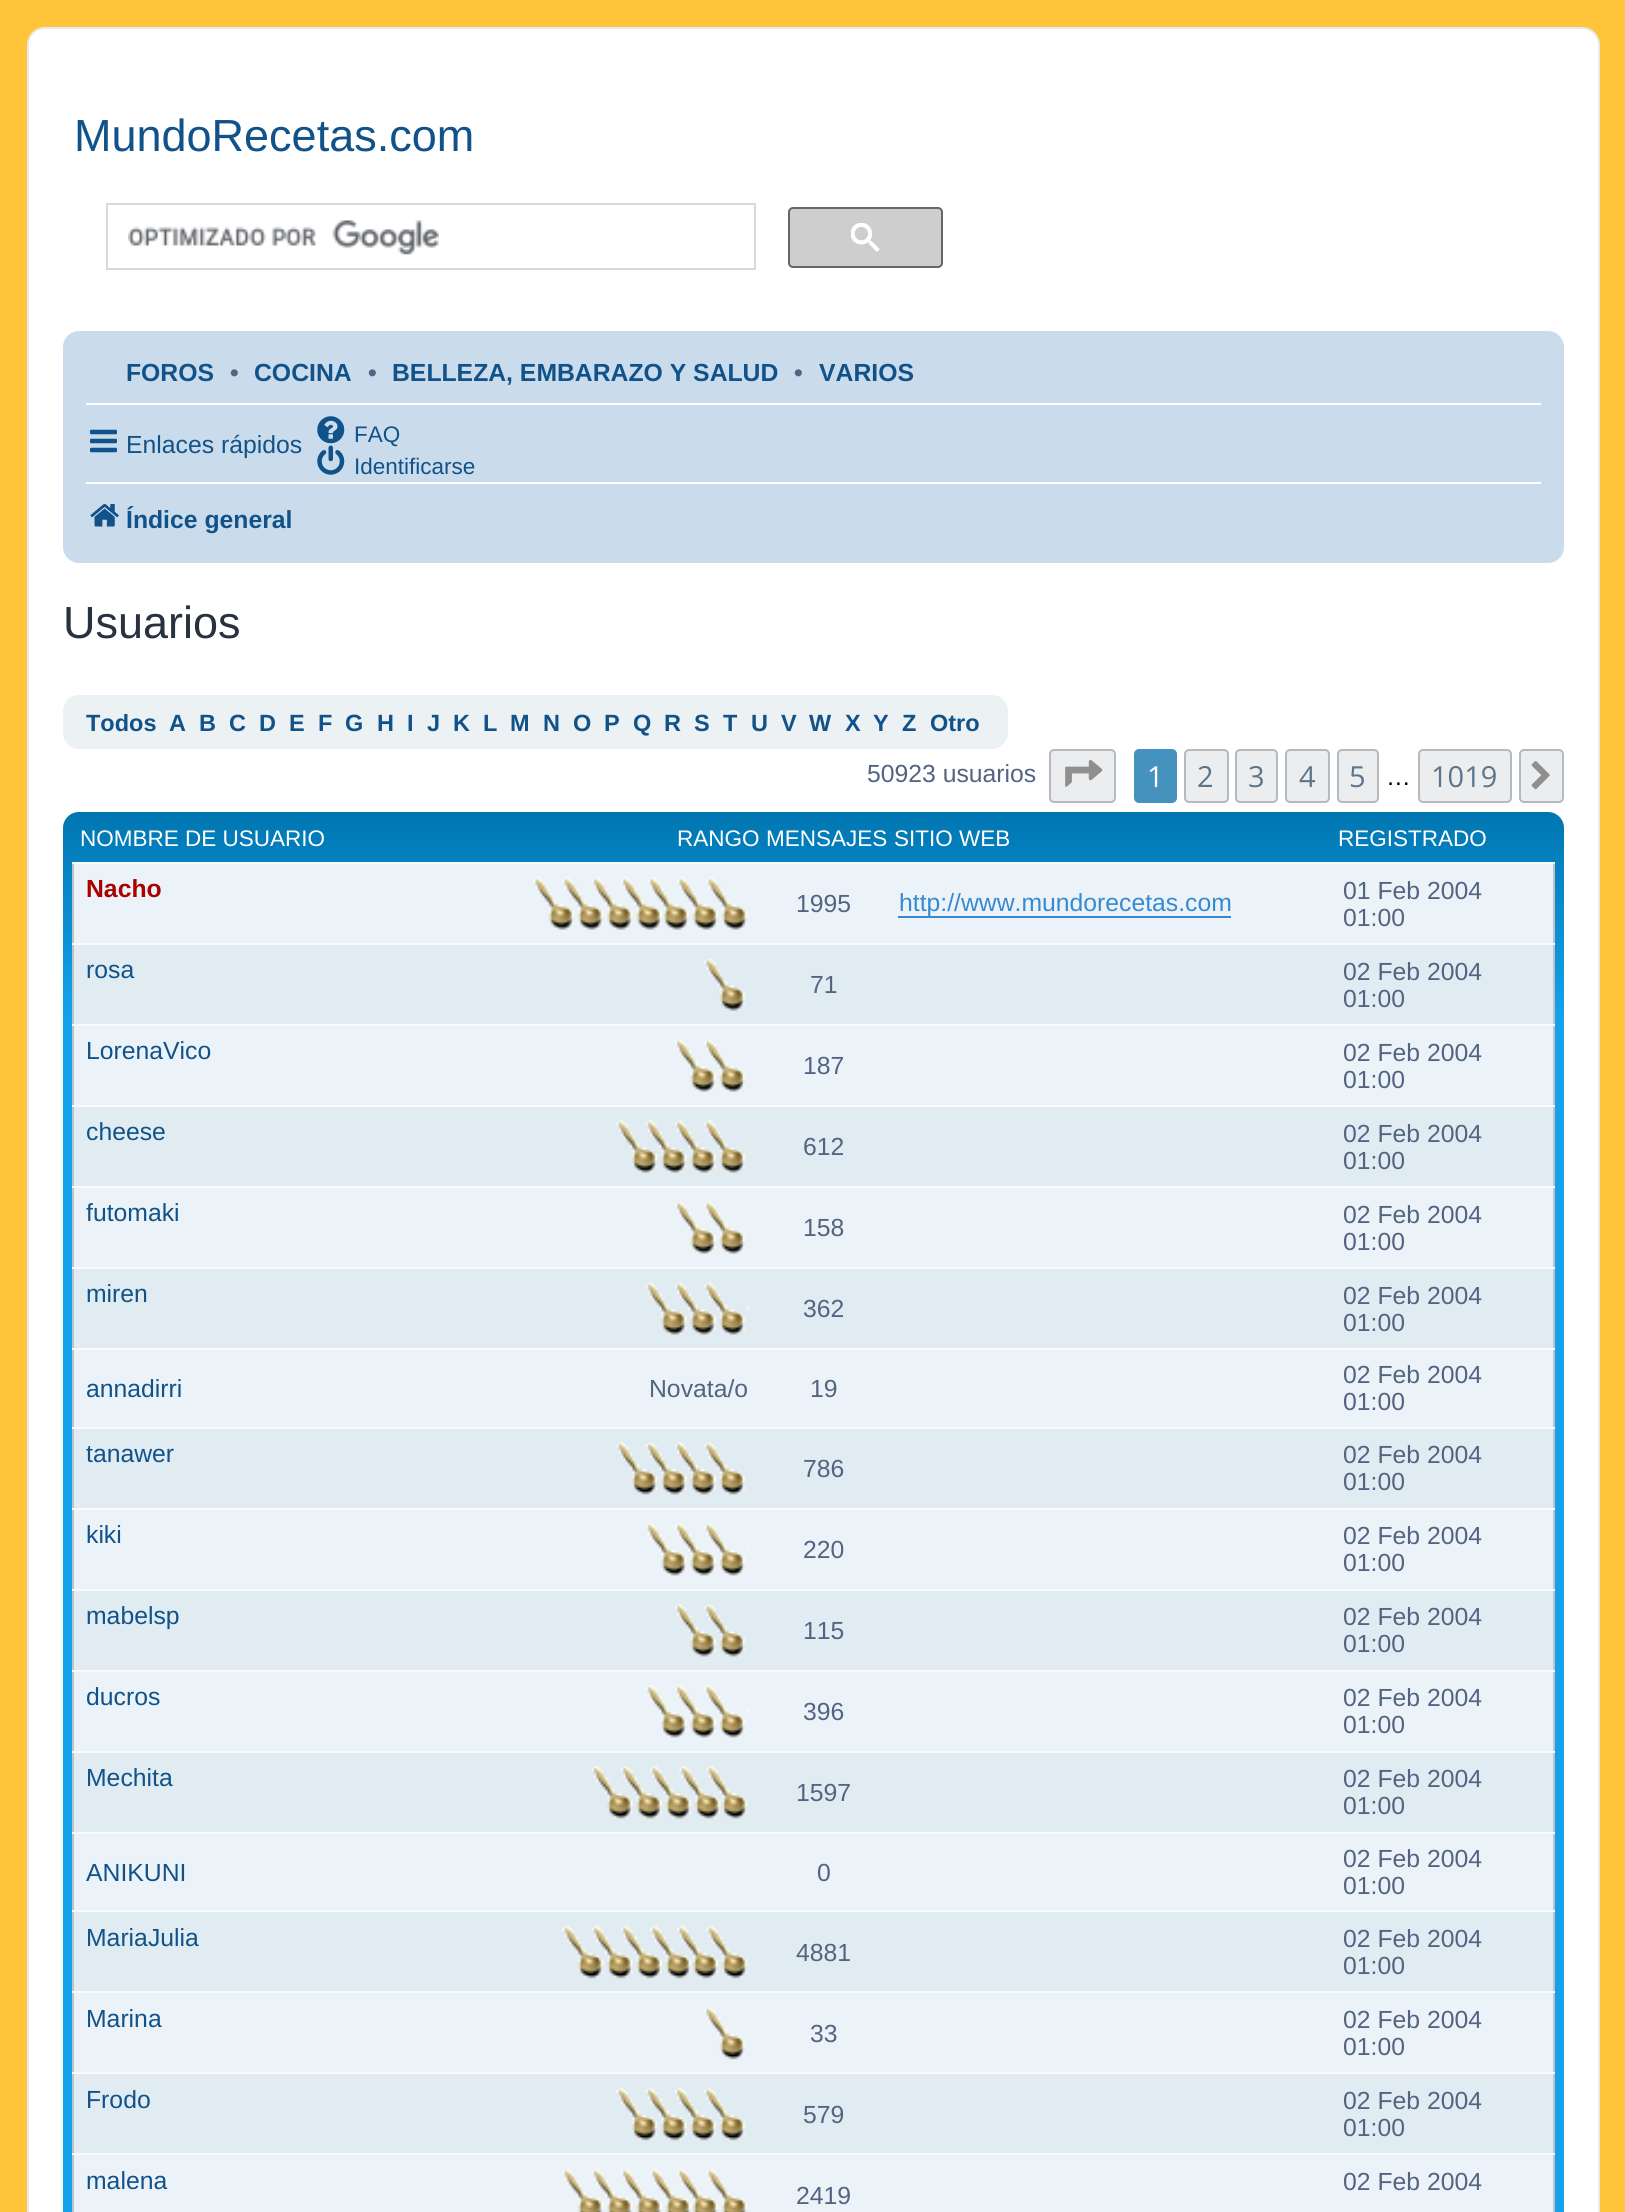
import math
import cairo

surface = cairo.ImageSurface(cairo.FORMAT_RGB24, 1625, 2212)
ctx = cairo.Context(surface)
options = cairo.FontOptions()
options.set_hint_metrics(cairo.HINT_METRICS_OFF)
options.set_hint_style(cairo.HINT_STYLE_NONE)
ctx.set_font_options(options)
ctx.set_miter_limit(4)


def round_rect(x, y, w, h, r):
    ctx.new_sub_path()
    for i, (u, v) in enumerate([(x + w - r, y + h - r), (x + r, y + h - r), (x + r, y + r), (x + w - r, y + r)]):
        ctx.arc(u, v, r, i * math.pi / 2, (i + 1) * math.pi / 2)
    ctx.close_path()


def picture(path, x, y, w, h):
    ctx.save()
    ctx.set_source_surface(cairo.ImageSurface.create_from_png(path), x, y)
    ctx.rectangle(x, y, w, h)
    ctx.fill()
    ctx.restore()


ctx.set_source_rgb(1, 0.773, 0.227)
ctx.paint()
ctx.set_source_rgb(1, 1, 1)
round_rect(28, 28, 1571, 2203, 17)
ctx.fill_preserve()
ctx.set_source_rgb(0.902, 0.914, 0.929)
ctx.stroke()
ctx.select_font_face("Liberation Sans")
ctx.set_font_size(45)
ctx.set_source_rgb(0.063, 0.322, 0.537)
ctx.move_to(74, 151)
ctx.show_text("MundoRecetas.com")
ctx.rectangle(107, 204, 648, 65)
ctx.set_source_rgb(0.851, 0.851, 0.851)
ctx.stroke()
picture("img1.png", 128, 220, 311, 35)
ctx.set_source_rgb(0.808, 0.808, 0.808)
round_rect(789, 208, 153, 59, 4)
ctx.fill_preserve()
ctx.set_source_rgb(0.4, 0.4, 0.4)
ctx.stroke()
picture("img2.png", 851, 223, 29, 29)
ctx.set_source_rgb(0.792, 0.863, 0.922)
round_rect(63, 331, 1501, 232, 16)
ctx.fill()
ctx.select_font_face("Liberation Sans", cairo.FONT_SLANT_NORMAL, cairo.FONT_WEIGHT_BOLD)
ctx.set_font_size(24.75)
ctx.set_source_rgb(0.063, 0.322, 0.537)
ctx.move_to(126, 381)
ctx.show_text("FOROS")
ctx.set_source_rgb(0.325, 0.392, 0.51)
ctx.move_to(230, 381)
ctx.show_text("•")
ctx.set_source_rgb(0.063, 0.322, 0.537)
ctx.move_to(254, 381)
ctx.show_text("COCINA")
ctx.set_source_rgb(0.325, 0.392, 0.51)
ctx.move_to(368, 381)
ctx.show_text("•")
ctx.set_source_rgb(0.063, 0.322, 0.537)
ctx.move_to(392, 381)
ctx.show_text("BELLEZA, EMBARAZO Y SALUD")
ctx.set_source_rgb(0.325, 0.392, 0.51)
ctx.move_to(794, 381)
ctx.show_text("•")
ctx.set_source_rgb(0.063, 0.322, 0.537)
ctx.move_to(819, 381)
ctx.show_text("VARIOS")
ctx.set_source_rgb(1, 1, 1)
ctx.rectangle(86, 403, 1455, 2)
ctx.fill()
picture("img3.png", 90, 429, 27, 24)
ctx.select_font_face("Liberation Sans")
ctx.set_source_rgb(0.063, 0.322, 0.537)
ctx.move_to(126, 453)
ctx.show_text("Enlaces rápidos")
picture("img4.png", 317, 416, 28, 28)
ctx.set_font_size(22.5)
ctx.move_to(354, 442)
ctx.show_text("FAQ")
picture("img5.png", 317, 445, 28, 30)
ctx.move_to(354, 474)
ctx.show_text("Identificarse")
ctx.set_source_rgb(1, 1, 1)
ctx.rectangle(86, 482, 1455, 2)
ctx.fill()
picture("img6.png", 90, 504, 29, 23)
ctx.select_font_face("Liberation Sans", cairo.FONT_SLANT_NORMAL, cairo.FONT_WEIGHT_BOLD)
ctx.set_font_size(24.75)
ctx.set_source_rgb(0.063, 0.322, 0.537)
ctx.move_to(126, 528)
ctx.show_text("Índice general")
ctx.select_font_face("Liberation Sans")
ctx.set_font_size(45)
ctx.set_source_rgb(0.157, 0.192, 0.247)
ctx.move_to(63, 638)
ctx.show_text("Usuarios")
ctx.set_source_rgb(0.925, 0.945, 0.953)
round_rect(63, 695, 945, 54, 16)
ctx.fill()
ctx.select_font_face("Liberation Sans", cairo.FONT_SLANT_NORMAL, cairo.FONT_WEIGHT_BOLD)
ctx.set_font_size(23.5)
ctx.set_source_rgb(0.063, 0.322, 0.537)
ctx.move_to(86, 731)
ctx.show_text("Todos")
ctx.move_to(169, 731)
ctx.show_text("A")
ctx.move_to(199, 731)
ctx.show_text("B")
ctx.move_to(229, 731)
ctx.show_text("C")
ctx.move_to(259, 731)
ctx.show_text("D")
ctx.move_to(289, 731)
ctx.show_text("E")
ctx.move_to(318, 731)
ctx.show_text("F")
ctx.move_to(345, 731)
ctx.show_text("G")
ctx.move_to(377, 731)
ctx.show_text("H")
ctx.move_to(407, 731)
ctx.show_text("I")
ctx.move_to(427, 731)
ctx.show_text("J")
ctx.move_to(453, 731)
ctx.show_text("K")
ctx.move_to(483, 731)
ctx.show_text("L")
ctx.move_to(510, 731)
ctx.show_text("M")
ctx.move_to(543, 731)
ctx.show_text("N")
ctx.move_to(573, 731)
ctx.show_text("O")
ctx.move_to(604, 731)
ctx.show_text("P")
ctx.move_to(633, 731)
ctx.show_text("Q")
ctx.move_to(664, 731)
ctx.show_text("R")
ctx.move_to(694, 731)
ctx.show_text("S")
ctx.move_to(723, 731)
ctx.show_text("T")
ctx.move_to(751, 731)
ctx.show_text("U")
ctx.move_to(781, 731)
ctx.show_text("V")
ctx.move_to(809, 731)
ctx.show_text("W")
ctx.move_to(845, 731)
ctx.show_text("X")
ctx.move_to(873, 731)
ctx.show_text("Y")
ctx.move_to(902, 731)
ctx.show_text("Z")
ctx.move_to(930, 731)
ctx.show_text("Otro")
ctx.select_font_face("Liberation Sans")
ctx.set_font_size(24.75)
ctx.set_source_rgb(0.325, 0.392, 0.51)
ctx.move_to(867, 782)
ctx.show_text("50923 usuarios")
ctx.set_source_rgb(0.925, 0.929, 0.933)
round_rect(1050, 750, 65, 52, 4)
ctx.fill_preserve()
ctx.set_source_rgb(0.706, 0.729, 0.753)
ctx.stroke()
picture("img7.png", 1065, 760, 38, 27)
ctx.set_source_rgb(0.275, 0.573, 0.749)
round_rect(1135, 750, 41, 52, 4)
ctx.fill_preserve()
ctx.stroke()
ctx.select_font_face("Open Sans")
ctx.set_font_size(29)
ctx.set_source_rgb(1, 1, 1)
ctx.move_to(1147, 787)
ctx.show_text("1")
ctx.set_source_rgb(0.925, 0.929, 0.933)
round_rect(1185, 750, 43, 52, 4)
ctx.fill_preserve()
ctx.set_source_rgb(0.706, 0.729, 0.753)
ctx.stroke()
ctx.set_source_rgb(0.361, 0.459, 0.549)
ctx.move_to(1197, 787)
ctx.show_text("2")
ctx.set_source_rgb(0.925, 0.929, 0.933)
round_rect(1236, 750, 41, 52, 4)
ctx.fill_preserve()
ctx.set_source_rgb(0.706, 0.729, 0.753)
ctx.stroke()
ctx.set_source_rgb(0.361, 0.459, 0.549)
ctx.move_to(1248, 787)
ctx.show_text("3")
ctx.set_source_rgb(0.925, 0.929, 0.933)
round_rect(1286, 750, 43, 52, 4)
ctx.fill_preserve()
ctx.set_source_rgb(0.706, 0.729, 0.753)
ctx.stroke()
ctx.set_source_rgb(0.361, 0.459, 0.549)
ctx.move_to(1299, 787)
ctx.show_text("4")
ctx.set_source_rgb(0.925, 0.929, 0.933)
round_rect(1338, 750, 40, 52, 4)
ctx.fill_preserve()
ctx.set_source_rgb(0.706, 0.729, 0.753)
ctx.stroke()
ctx.set_source_rgb(0.361, 0.459, 0.549)
ctx.move_to(1349, 787)
ctx.show_text("5")
ctx.select_font_face("Liberation Sans")
ctx.set_font_size(24.75)
ctx.set_source_rgb(0, 0, 0)
ctx.move_to(1386, 785)
ctx.show_text("…")
ctx.set_source_rgb(0.925, 0.929, 0.933)
round_rect(1419, 750, 92, 52, 4)
ctx.fill_preserve()
ctx.set_source_rgb(0.706, 0.729, 0.753)
ctx.stroke()
ctx.select_font_face("Open Sans")
ctx.set_font_size(29)
ctx.set_source_rgb(0.361, 0.459, 0.549)
ctx.move_to(1431, 787)
ctx.show_text("1019")
ctx.set_source_rgb(0.925, 0.929, 0.933)
round_rect(1520, 750, 43, 52, 4)
ctx.fill_preserve()
ctx.set_source_rgb(0.706, 0.729, 0.753)
ctx.stroke()
picture("img8.png", 1531, 761, 19, 29)
gradient = cairo.LinearGradient(813, 812, 813, 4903)
gradient.add_color_stop_rgba(0, 0.416, 0.808, 1, 1)
gradient.add_color_stop_rgba(0, 0, 0.463, 0.694, 1)
gradient.add_color_stop_rgba(0.05, 0.071, 0.639, 0.922, 1)
gradient.add_color_stop_rgba(1, 0.071, 0.639, 0.922, 1)
ctx.set_source(gradient)
round_rect(63, 812, 1501, 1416, 16)
ctx.fill()
ctx.select_font_face("Liberation Sans")
ctx.set_font_size(22.5)
ctx.set_source_rgb(1, 1, 1)
ctx.move_to(80, 846)
ctx.show_text("NOMBRE DE USUARIO")
ctx.move_to(677, 846)
ctx.show_text("RANGO")
ctx.move_to(766, 846)
ctx.show_text("MENSAJES")
ctx.move_to(894, 846)
ctx.show_text("SITIO WEB")
ctx.move_to(1338, 846)
ctx.show_text("REGISTRADO")
ctx.set_source_rgb(0.925, 0.953, 0.969)
ctx.rectangle(74, 864, 1479, 79)
ctx.fill()
ctx.select_font_face("Liberation Sans", cairo.FONT_SLANT_NORMAL, cairo.FONT_WEIGHT_BOLD)
ctx.set_font_size(24.75)
ctx.set_source_rgb(0.667, 0, 0)
ctx.move_to(86, 897)
ctx.show_text("Nacho")
picture("img9.png", 533, 877, 215, 53)
ctx.select_font_face("Liberation Sans")
ctx.set_source_rgb(0.325, 0.392, 0.51)
ctx.move_to(796, 912)
ctx.show_text("1995")
ctx.set_source_rgb(0.212, 0.541, 0.824)
ctx.rectangle(898, 916, 333, 2)
ctx.fill()
ctx.move_to(899, 911)
ctx.show_text("http://www.mundorecetas.com")
ctx.set_source_rgb(0.749, 0.757, 0.812)
ctx.rectangle(1553, 862, 2, 1350)
ctx.fill()
ctx.rectangle(72, 862, 2, 1350)
ctx.fill()
ctx.set_source_rgb(0.98, 0.98, 0.98)
ctx.rectangle(72, 862, 1483, 2)
ctx.fill()
ctx.set_source_rgb(0.325, 0.392, 0.51)
ctx.move_to(1343, 899)
ctx.show_text("01 Feb 2004")
ctx.move_to(1343, 926)
ctx.show_text("01:00")
ctx.set_source_rgb(0.882, 0.922, 0.949)
ctx.rectangle(74, 945, 1479, 79)
ctx.fill()
ctx.set_source_rgb(0.063, 0.322, 0.537)
ctx.move_to(86, 978)
ctx.show_text("rosa")
picture("img10.png", 704, 958, 42, 53)
ctx.set_source_rgb(0.98, 0.98, 0.98)
ctx.rectangle(72, 943, 1483, 2)
ctx.fill()
ctx.set_source_rgb(0.325, 0.392, 0.51)
ctx.move_to(1343, 980)
ctx.show_text("02 Feb 2004")
ctx.move_to(1343, 1007)
ctx.show_text("01:00")
ctx.move_to(810, 993)
ctx.show_text("71")
ctx.set_source_rgb(0.925, 0.953, 0.969)
ctx.rectangle(74, 1026, 1479, 79)
ctx.fill()
ctx.set_source_rgb(0.063, 0.322, 0.537)
ctx.move_to(86, 1059)
ctx.show_text("LorenaVico")
picture("img11.png", 675, 1039, 70, 53)
ctx.set_source_rgb(0.325, 0.392, 0.51)
ctx.move_to(803, 1074)
ctx.show_text("187")
ctx.set_source_rgb(0.98, 0.98, 0.98)
ctx.rectangle(72, 1024, 1483, 2)
ctx.fill()
ctx.set_source_rgb(0.325, 0.392, 0.51)
ctx.move_to(1343, 1061)
ctx.show_text("02 Feb 2004")
ctx.move_to(1343, 1088)
ctx.show_text("01:00")
ctx.set_source_rgb(0.882, 0.922, 0.949)
ctx.rectangle(74, 1107, 1479, 79)
ctx.fill()
ctx.set_source_rgb(0.063, 0.322, 0.537)
ctx.move_to(86, 1140)
ctx.show_text("cheese")
picture("img12.png", 616, 1120, 130, 53)
ctx.set_source_rgb(0.325, 0.392, 0.51)
ctx.move_to(803, 1155)
ctx.show_text("612")
ctx.set_source_rgb(0.98, 0.98, 0.98)
ctx.rectangle(72, 1105, 1483, 2)
ctx.fill()
ctx.set_source_rgb(0.325, 0.392, 0.51)
ctx.move_to(1343, 1142)
ctx.show_text("02 Feb 2004")
ctx.move_to(1343, 1169)
ctx.show_text("01:00")
ctx.set_source_rgb(0.925, 0.953, 0.969)
ctx.rectangle(74, 1188, 1479, 79)
ctx.fill()
ctx.set_source_rgb(0.063, 0.322, 0.537)
ctx.move_to(86, 1221)
ctx.show_text("futomaki")
picture("img11.png", 675, 1201, 70, 53)
ctx.set_source_rgb(0.325, 0.392, 0.51)
ctx.move_to(803, 1236)
ctx.show_text("158")
ctx.set_source_rgb(0.98, 0.98, 0.98)
ctx.rectangle(72, 1186, 1483, 2)
ctx.fill()
ctx.set_source_rgb(0.325, 0.392, 0.51)
ctx.move_to(1343, 1223)
ctx.show_text("02 Feb 2004")
ctx.move_to(1343, 1250)
ctx.show_text("01:00")
ctx.set_source_rgb(0.882, 0.922, 0.949)
ctx.rectangle(74, 1269, 1479, 79)
ctx.fill()
ctx.set_source_rgb(0.063, 0.322, 0.537)
ctx.move_to(86, 1302)
ctx.show_text("miren")
picture("img13.png", 645, 1282, 105, 53)
ctx.set_source_rgb(0.325, 0.392, 0.51)
ctx.move_to(803, 1317)
ctx.show_text("362")
ctx.set_source_rgb(0.98, 0.98, 0.98)
ctx.rectangle(72, 1267, 1483, 2)
ctx.fill()
ctx.set_source_rgb(0.325, 0.392, 0.51)
ctx.move_to(1343, 1304)
ctx.show_text("02 Feb 2004")
ctx.move_to(1343, 1331)
ctx.show_text("01:00")
ctx.set_source_rgb(0.925, 0.953, 0.969)
ctx.rectangle(74, 1350, 1479, 77)
ctx.fill()
ctx.set_source_rgb(0.063, 0.322, 0.537)
ctx.move_to(86, 1397)
ctx.show_text("annadirri")
ctx.set_source_rgb(0.325, 0.392, 0.51)
ctx.move_to(649, 1397)
ctx.show_text("Novata/o")
ctx.move_to(810, 1397)
ctx.show_text("19")
ctx.set_source_rgb(0.98, 0.98, 0.98)
ctx.rectangle(72, 1348, 1483, 2)
ctx.fill()
ctx.set_source_rgb(0.325, 0.392, 0.51)
ctx.move_to(1343, 1383)
ctx.show_text("02 Feb 2004")
ctx.move_to(1343, 1410)
ctx.show_text("01:00")
ctx.set_source_rgb(0.882, 0.922, 0.949)
ctx.rectangle(74, 1429, 1479, 79)
ctx.fill()
ctx.set_source_rgb(0.063, 0.322, 0.537)
ctx.move_to(86, 1462)
ctx.show_text("tanawer")
picture("img14.png", 616, 1442, 130, 53)
ctx.set_source_rgb(0.98, 0.98, 0.98)
ctx.rectangle(72, 1427, 1483, 2)
ctx.fill()
ctx.set_source_rgb(0.325, 0.392, 0.51)
ctx.move_to(1343, 1463)
ctx.show_text("02 Feb 2004")
ctx.move_to(1343, 1490)
ctx.show_text("01:00")
ctx.move_to(803, 1477)
ctx.show_text("786")
ctx.set_source_rgb(0.925, 0.953, 0.969)
ctx.rectangle(74, 1510, 1479, 79)
ctx.fill()
ctx.set_source_rgb(0.063, 0.322, 0.537)
ctx.move_to(86, 1543)
ctx.show_text("kiki")
picture("img15.png", 645, 1523, 104, 53)
ctx.set_source_rgb(0.325, 0.392, 0.51)
ctx.move_to(803, 1558)
ctx.show_text("220")
ctx.set_source_rgb(0.98, 0.98, 0.98)
ctx.rectangle(72, 1508, 1483, 2)
ctx.fill()
ctx.set_source_rgb(0.325, 0.392, 0.51)
ctx.move_to(1343, 1544)
ctx.show_text("02 Feb 2004")
ctx.move_to(1343, 1571)
ctx.show_text("01:00")
ctx.set_source_rgb(0.882, 0.922, 0.949)
ctx.rectangle(74, 1591, 1479, 79)
ctx.fill()
ctx.set_source_rgb(0.063, 0.322, 0.537)
ctx.move_to(86, 1624)
ctx.show_text("mabelsp")
picture("img16.png", 675, 1604, 71, 53)
ctx.set_source_rgb(0.325, 0.392, 0.51)
ctx.move_to(803, 1639)
ctx.show_text("115")
ctx.set_source_rgb(0.98, 0.98, 0.98)
ctx.rectangle(72, 1589, 1483, 2)
ctx.fill()
ctx.set_source_rgb(0.325, 0.392, 0.51)
ctx.move_to(1343, 1625)
ctx.show_text("02 Feb 2004")
ctx.move_to(1343, 1652)
ctx.show_text("01:00")
ctx.set_source_rgb(0.925, 0.953, 0.969)
ctx.rectangle(74, 1672, 1479, 79)
ctx.fill()
ctx.set_source_rgb(0.063, 0.322, 0.537)
ctx.move_to(86, 1705)
ctx.show_text("ducros")
picture("img15.png", 645, 1685, 104, 53)
ctx.set_source_rgb(0.325, 0.392, 0.51)
ctx.move_to(803, 1720)
ctx.show_text("396")
ctx.set_source_rgb(0.98, 0.98, 0.98)
ctx.rectangle(72, 1670, 1483, 2)
ctx.fill()
ctx.set_source_rgb(0.325, 0.392, 0.51)
ctx.move_to(1343, 1706)
ctx.show_text("02 Feb 2004")
ctx.move_to(1343, 1733)
ctx.show_text("01:00")
ctx.set_source_rgb(0.882, 0.922, 0.949)
ctx.rectangle(74, 1753, 1479, 79)
ctx.fill()
ctx.set_source_rgb(0.063, 0.322, 0.537)
ctx.move_to(86, 1786)
ctx.show_text("Mechita")
picture("img17.png", 591, 1766, 157, 53)
ctx.set_source_rgb(0.325, 0.392, 0.51)
ctx.move_to(796, 1801)
ctx.show_text("1597")
ctx.set_source_rgb(0.98, 0.98, 0.98)
ctx.rectangle(72, 1751, 1483, 2)
ctx.fill()
ctx.set_source_rgb(0.325, 0.392, 0.51)
ctx.move_to(1343, 1787)
ctx.show_text("02 Feb 2004")
ctx.move_to(1343, 1814)
ctx.show_text("01:00")
ctx.set_source_rgb(0.925, 0.953, 0.969)
ctx.rectangle(74, 1834, 1479, 76)
ctx.fill()
ctx.set_source_rgb(0.063, 0.322, 0.537)
ctx.move_to(86, 1881)
ctx.show_text("ANIKUNI")
ctx.set_source_rgb(0.325, 0.392, 0.51)
ctx.move_to(817, 1881)
ctx.show_text("0")
ctx.set_source_rgb(0.98, 0.98, 0.98)
ctx.rectangle(72, 1832, 1483, 2)
ctx.fill()
ctx.set_source_rgb(0.325, 0.392, 0.51)
ctx.move_to(1343, 1867)
ctx.show_text("02 Feb 2004")
ctx.move_to(1343, 1894)
ctx.show_text("01:00")
ctx.set_source_rgb(0.882, 0.922, 0.949)
ctx.rectangle(74, 1912, 1479, 79)
ctx.fill()
ctx.set_source_rgb(0.063, 0.322, 0.537)
ctx.move_to(86, 1946)
ctx.show_text("MariaJulia")
picture("img18.png", 562, 1925, 186, 54)
ctx.set_source_rgb(0.325, 0.392, 0.51)
ctx.move_to(796, 1961)
ctx.show_text("4881")
ctx.set_source_rgb(0.98, 0.98, 0.98)
ctx.rectangle(72, 1910, 1483, 2)
ctx.fill()
ctx.set_source_rgb(0.325, 0.392, 0.51)
ctx.move_to(1343, 1947)
ctx.show_text("02 Feb 2004")
ctx.move_to(1343, 1974)
ctx.show_text("01:00")
ctx.set_source_rgb(0.925, 0.953, 0.969)
ctx.rectangle(74, 1993, 1479, 79)
ctx.fill()
ctx.set_source_rgb(0.063, 0.322, 0.537)
ctx.move_to(86, 2027)
ctx.show_text("Marina")
picture("img19.png", 704, 2006, 41, 54)
ctx.set_source_rgb(0.325, 0.392, 0.51)
ctx.move_to(810, 2042)
ctx.show_text("33")
ctx.set_source_rgb(0.98, 0.98, 0.98)
ctx.rectangle(72, 1991, 1483, 2)
ctx.fill()
ctx.set_source_rgb(0.325, 0.392, 0.51)
ctx.move_to(1343, 2028)
ctx.show_text("02 Feb 2004")
ctx.move_to(1343, 2055)
ctx.show_text("01:00")
ctx.set_source_rgb(0.882, 0.922, 0.949)
ctx.rectangle(74, 2074, 1479, 79)
ctx.fill()
ctx.set_source_rgb(0.063, 0.322, 0.537)
ctx.move_to(86, 2108)
ctx.show_text("Frodo")
picture("img20.png", 616, 2087, 130, 54)
ctx.set_source_rgb(0.325, 0.392, 0.51)
ctx.move_to(803, 2123)
ctx.show_text("579")
ctx.set_source_rgb(0.98, 0.98, 0.98)
ctx.rectangle(72, 2072, 1483, 2)
ctx.fill()
ctx.set_source_rgb(0.325, 0.392, 0.51)
ctx.move_to(1343, 2109)
ctx.show_text("02 Feb 2004")
ctx.move_to(1343, 2136)
ctx.show_text("01:00")
ctx.set_source_rgb(0.925, 0.953, 0.969)
ctx.rectangle(74, 2155, 1479, 57)
ctx.fill()
ctx.set_source_rgb(0.063, 0.322, 0.537)
ctx.move_to(86, 2189)
ctx.show_text("malena")
picture("img21.png", 562, 2168, 186, 44)
ctx.set_source_rgb(0.98, 0.98, 0.98)
ctx.rectangle(72, 2153, 1483, 2)
ctx.fill()
ctx.set_source_rgb(0.325, 0.392, 0.51)
ctx.move_to(1343, 2190)
ctx.show_text("02 Feb 2004")
ctx.move_to(796, 2204)
ctx.show_text("2419")
surface.write_to_png("page.png")
